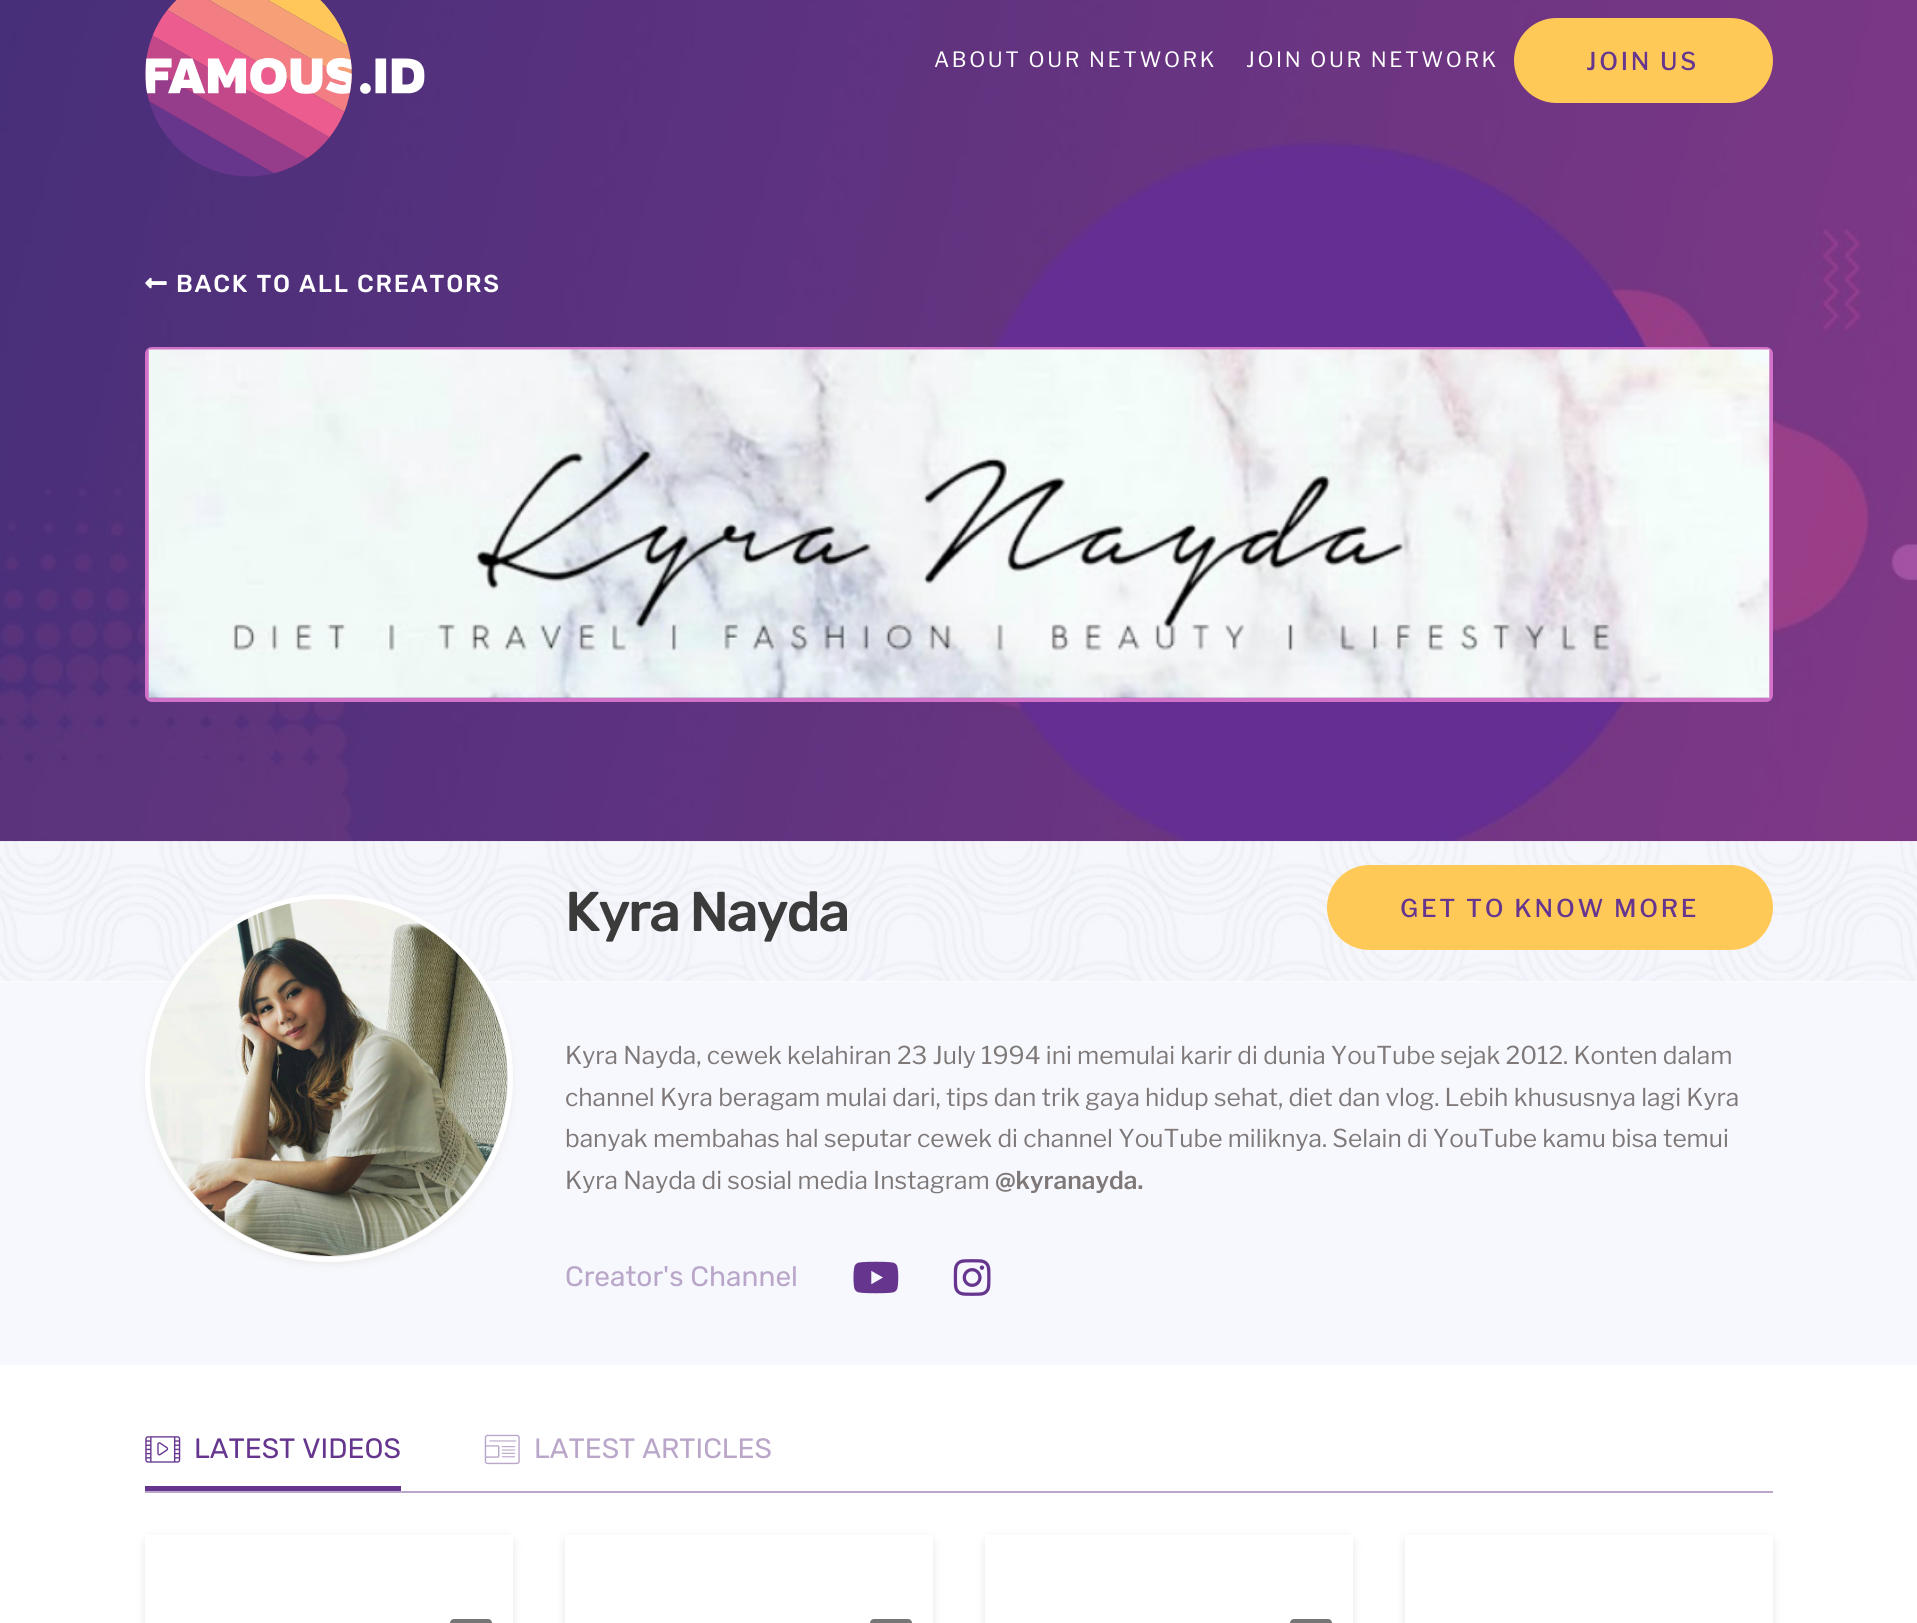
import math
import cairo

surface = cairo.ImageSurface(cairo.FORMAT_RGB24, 1917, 1623)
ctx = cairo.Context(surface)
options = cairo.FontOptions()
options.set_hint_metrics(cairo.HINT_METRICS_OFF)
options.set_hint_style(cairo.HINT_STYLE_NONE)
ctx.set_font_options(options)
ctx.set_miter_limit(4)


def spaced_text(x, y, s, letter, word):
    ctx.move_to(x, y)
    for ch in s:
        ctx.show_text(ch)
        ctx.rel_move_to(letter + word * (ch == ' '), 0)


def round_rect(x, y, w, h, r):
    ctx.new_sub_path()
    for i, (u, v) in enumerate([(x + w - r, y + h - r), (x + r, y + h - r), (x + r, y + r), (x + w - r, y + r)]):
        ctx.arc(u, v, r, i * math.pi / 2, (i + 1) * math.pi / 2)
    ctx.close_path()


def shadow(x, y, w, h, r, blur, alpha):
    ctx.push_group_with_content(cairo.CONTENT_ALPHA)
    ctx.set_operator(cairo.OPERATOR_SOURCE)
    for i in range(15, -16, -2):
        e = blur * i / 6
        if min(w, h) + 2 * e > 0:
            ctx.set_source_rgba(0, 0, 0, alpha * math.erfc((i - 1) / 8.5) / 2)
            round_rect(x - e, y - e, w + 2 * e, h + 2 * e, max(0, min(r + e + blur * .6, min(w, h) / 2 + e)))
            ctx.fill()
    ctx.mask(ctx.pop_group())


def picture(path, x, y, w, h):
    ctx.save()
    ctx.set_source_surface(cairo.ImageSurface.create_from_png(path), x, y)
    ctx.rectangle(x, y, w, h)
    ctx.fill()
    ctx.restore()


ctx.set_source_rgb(1, 1, 1)
ctx.paint()
picture("img2.png", 0, 0, 1917, 842)
picture("img1.png", 145, 0, 280, 177)
ctx.select_font_face("Libre Franklin")
ctx.set_font_size(21)
ctx.set_source_rgb(1, 1, 1)
spaced_text(934, 67, "ABOUT OUR NETWORK", 2.6, 0)
spaced_text(1246, 67, "JOIN OUR NETWORK", 2.6, 0)
ctx.set_source_rgb(1, 0.788, 0.345)
round_rect(1516, 20, 255, 81, 40.5)
ctx.fill_preserve()
ctx.set_line_width(4)
ctx.stroke()
ctx.select_font_face("Libre Franklin Medium")
ctx.set_font_size(24.5)
ctx.set_source_rgb(0.4, 0.212, 0.561)
spaced_text(1586, 70, "JOIN US", 2.75, 0)
picture("img3.png", 145, 277, 22, 12)
ctx.select_font_face("Rubik Medium")
ctx.set_source_rgb(1, 1, 1)
spaced_text(176, 292, "BACK TO ALL CREATORS", 1.75, 0)
round_rect(147, 349, 1624, 351, 5)
ctx.set_source_rgb(0.82, 0.447, 0.784)
ctx.stroke()
picture("img4.png", 148, 349, 1622, 349)
picture("img5.png", 0, 841, 1917, 141)
ctx.set_font_size(56)
ctx.set_source_rgb(0.231, 0.231, 0.231)
spaced_text(565, 931, "Kyra Nayda", -2.25, 0)
ctx.set_source_rgb(1, 0.788, 0.345)
round_rect(1329, 867, 442, 81, 40.5)
ctx.fill_preserve()
ctx.stroke()
ctx.select_font_face("Libre Franklin Medium")
ctx.set_font_size(24.5)
ctx.set_source_rgb(0.4, 0.212, 0.561)
spaced_text(1400, 917, "GET TO KNOW MORE", 2.75, 0)
ctx.set_source_rgb(0.961, 0.969, 0.992)
ctx.rectangle(0, 982, 1917, 383)
ctx.fill()
ctx.set_source_rgb(0.922, 0.922, 0.922)
shadow(145, 898, 368, 367, 183.5, 3.5, 1)
ctx.arc(329, 1078, 181.5, 0, 2 * math.pi)
ctx.set_source_rgb(1, 1, 1)
ctx.set_line_width(5)
ctx.stroke()
picture("img6.png", 150, 899, 358, 357)
ctx.select_font_face("Libre Franklin")
ctx.set_source_rgb(0.494, 0.471, 0.471)
ctx.move_to(565, 1064)
ctx.show_text("Kyra Nayda, cewek kelahiran 23 July 1994 ini memulai karir di dunia YouTube sejak 2012. Konten dalam")
ctx.move_to(565, 1106)
ctx.show_text("channel Kyra beragam mulai dari, tips dan trik gaya hidup sehat, diet dan vlog. Lebih khususnya lagi Kyra")
ctx.move_to(565, 1147)
ctx.show_text("banyak membahas hal seputar cewek di channel YouTube miliknya. Selain di YouTube kamu bisa temui")
ctx.move_to(565, 1189)
ctx.show_text("Kyra Nayda di sosial media Instagram")
ctx.select_font_face("Libre Franklin SemiBold")
ctx.move_to(995, 1189)
ctx.show_text("@kyranayda.")
ctx.select_font_face("Rubik")
ctx.set_font_size(28)
ctx.set_source_rgb(0.725, 0.651, 0.788)
ctx.move_to(565, 1286)
ctx.show_text("Creator's Channel")
picture("img7.png", 853, 1261, 46, 33)
picture("img8.png", 953, 1259, 38, 37)
ctx.rectangle(145, 1491, 1628, 2)
ctx.fill()
picture("img9.png", 145, 1436, 36, 27)
ctx.set_source_rgb(0.4, 0.212, 0.561)
ctx.move_to(194, 1458)
ctx.show_text("LATEST VIDEOS")
ctx.rectangle(145, 1486, 256, 5)
ctx.fill()
picture("img10.png", 484, 1434, 36, 31)
ctx.set_source_rgb(0.725, 0.651, 0.788)
ctx.move_to(534, 1458)
ctx.show_text("LATEST ARTICLES")
ctx.set_source_rgb(0, 0, 0)
shadow(145, 1538, 368, 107, 7, 5, 0.1)
ctx.set_source_rgb(1, 1, 1)
ctx.rectangle(145, 1535, 368, 88)
ctx.fill()
ctx.set_source_rgb(0.463, 0.463, 0.463)
round_rect(450, 1619, 42, 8, 4)
ctx.fill()
ctx.set_source_rgb(0, 0, 0)
shadow(565, 1538, 368, 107, 7, 5, 0.1)
ctx.set_source_rgb(1, 1, 1)
ctx.rectangle(565, 1535, 368, 88)
ctx.fill()
ctx.set_source_rgb(0.463, 0.463, 0.463)
round_rect(870, 1619, 42, 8, 4)
ctx.fill()
ctx.set_source_rgb(0, 0, 0)
shadow(985, 1538, 368, 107, 7, 5, 0.1)
ctx.set_source_rgb(1, 1, 1)
ctx.rectangle(985, 1535, 368, 88)
ctx.fill()
ctx.set_source_rgb(0.463, 0.463, 0.463)
round_rect(1290, 1619, 42, 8, 4)
ctx.fill()
ctx.set_source_rgb(0, 0, 0)
shadow(1405, 1538, 368, 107, 7, 5, 0.1)
ctx.set_source_rgb(1, 1, 1)
ctx.rectangle(1405, 1535, 368, 88)
ctx.fill()
surface.write_to_png("page.png")
